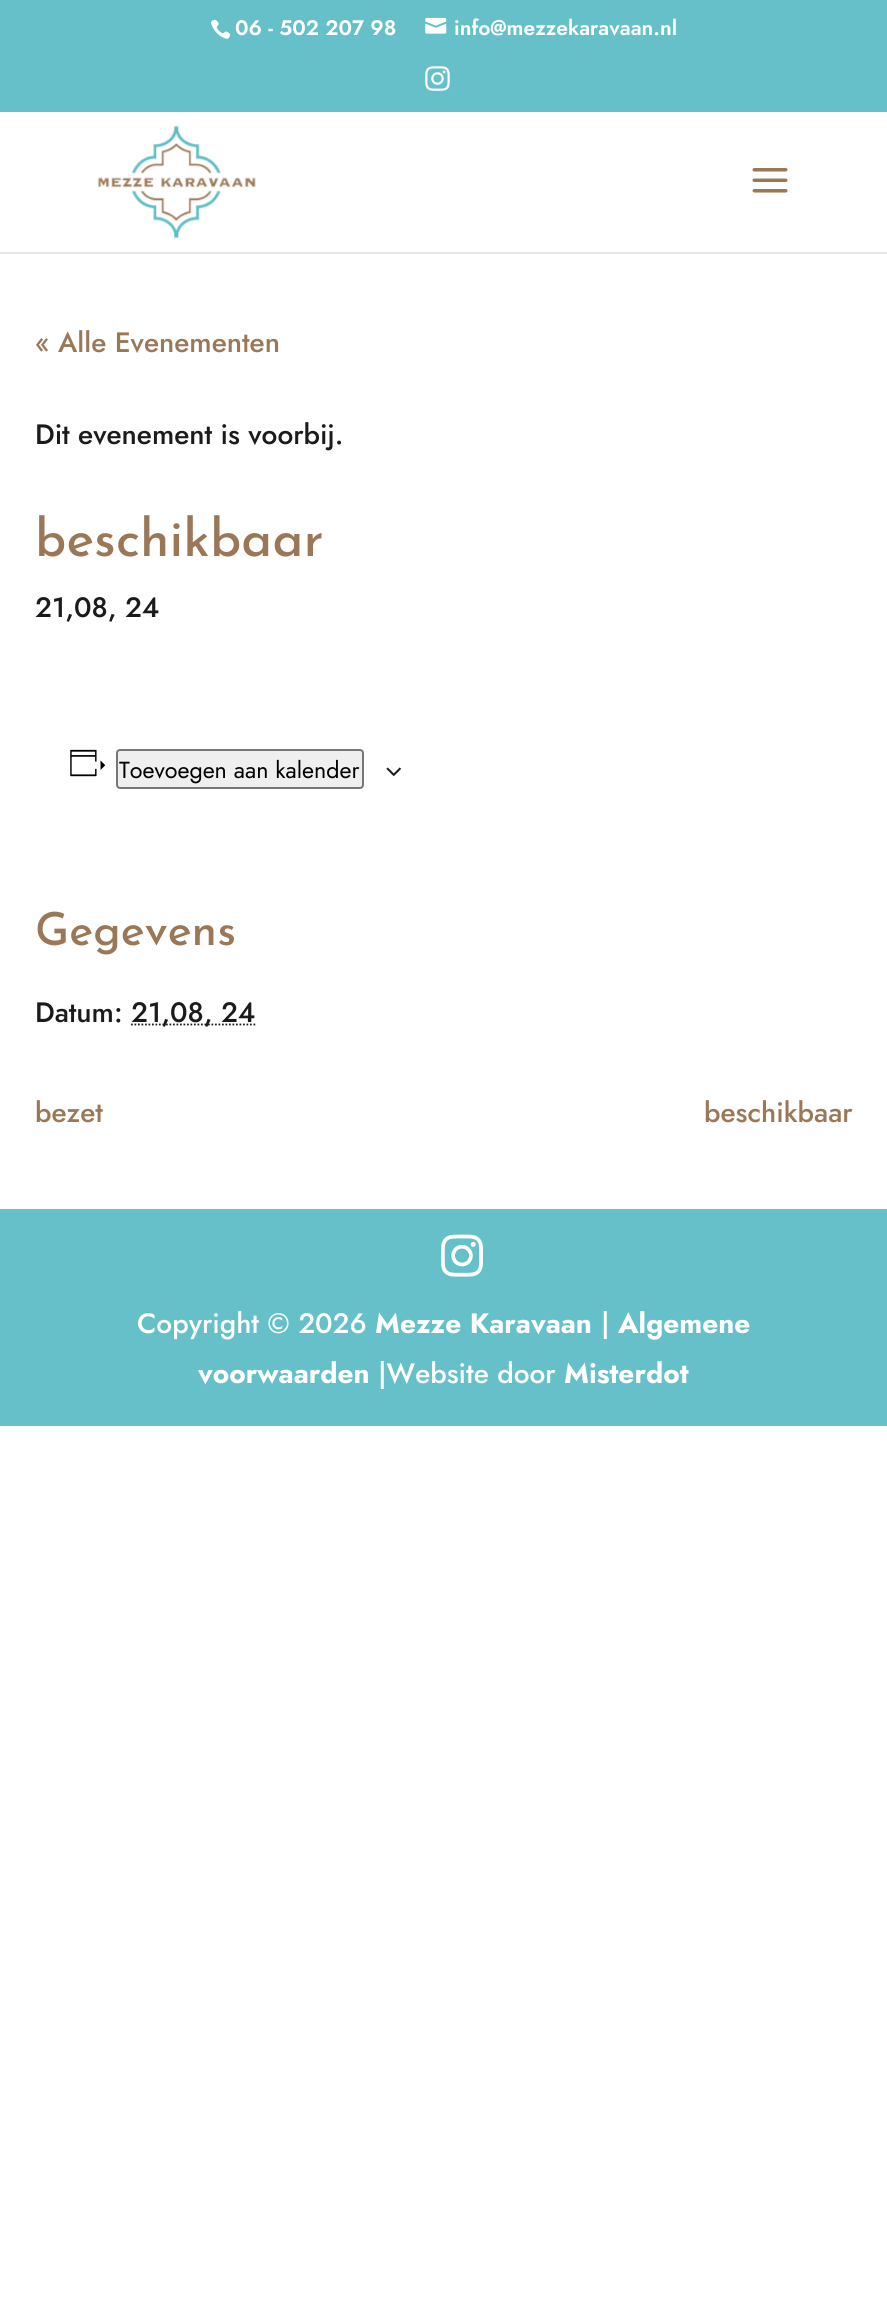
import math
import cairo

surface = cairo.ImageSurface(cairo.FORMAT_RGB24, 887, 2318)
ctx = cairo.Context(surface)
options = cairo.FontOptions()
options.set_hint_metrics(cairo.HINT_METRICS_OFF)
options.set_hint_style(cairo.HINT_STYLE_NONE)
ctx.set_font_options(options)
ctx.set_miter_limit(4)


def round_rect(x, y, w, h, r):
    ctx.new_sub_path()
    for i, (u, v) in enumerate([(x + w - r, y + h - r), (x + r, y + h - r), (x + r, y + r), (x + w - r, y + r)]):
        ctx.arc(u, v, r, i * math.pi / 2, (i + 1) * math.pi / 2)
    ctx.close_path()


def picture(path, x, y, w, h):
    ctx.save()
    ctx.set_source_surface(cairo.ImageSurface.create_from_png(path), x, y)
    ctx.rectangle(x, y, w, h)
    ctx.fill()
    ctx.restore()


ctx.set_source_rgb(1, 1, 1)
ctx.paint()
ctx.set_source_rgb(0.396, 0.753, 0.788)
ctx.rectangle(0, 0, 887, 112)
ctx.fill()
picture("img1.png", 210, 19, 21, 20)
ctx.select_font_face("Jost SemiBold")
ctx.set_font_size(21)
ctx.set_source_rgb(1, 1, 1)
ctx.move_to(235, 35)
ctx.show_text("06 - 502 207 98")
picture("img2.png", 425, 17, 22, 17)
ctx.move_to(454, 35)
ctx.show_text("info@mezzekaravaan.nl")
picture("img3.png", 425, 66, 25, 25)
ctx.set_source_rgb(0.902, 0.902, 0.902)
ctx.rectangle(0, 252, 887, 2)
ctx.fill()
picture("img4.png", 97, 125, 159, 114)
picture("img5.png", 752, 168, 36, 25)
ctx.select_font_face("Jost Medium")
ctx.set_font_size(28)
ctx.set_source_rgb(0.604, 0.471, 0.341)
ctx.move_to(35, 352)
ctx.show_text("« Alle Evenementen")
ctx.set_source_rgb(0.106, 0.106, 0.106)
ctx.move_to(35, 444)
ctx.show_text("Dit evenement is voorbij.")
ctx.select_font_face("Josefin Sans Medium")
ctx.set_font_size(52.5)
ctx.set_source_rgb(0.604, 0.471, 0.341)
ctx.move_to(35, 556)
ctx.show_text("beschikbaar")
ctx.select_font_face("Jost Medium")
ctx.set_font_size(28)
ctx.set_source_rgb(0.106, 0.106, 0.106)
ctx.move_to(35, 617)
ctx.show_text("21,08, 24")
picture("img6.png", 70, 749, 36, 28)
ctx.set_source_rgb(0.937, 0.937, 0.937)
round_rect(117, 750, 246, 38, 3)
ctx.fill_preserve()
ctx.set_source_rgb(0.463, 0.463, 0.463)
ctx.stroke()
ctx.select_font_face("Jost")
ctx.set_font_size(23.25)
ctx.set_source_rgb(0, 0, 0)
ctx.move_to(119, 778)
ctx.show_text("Toevoegen aan kalender")
picture("img7.png", 386, 767, 16, 10)
ctx.select_font_face("Josefin Sans Medium")
ctx.set_font_size(45.5)
ctx.set_source_rgb(0.604, 0.471, 0.341)
ctx.move_to(35, 945)
ctx.show_text("Gegevens")
ctx.select_font_face("Jost Medium")
ctx.set_font_size(28)
ctx.set_source_rgb(0.106, 0.106, 0.106)
ctx.move_to(35, 1022)
ctx.show_text("Datum:")
ctx.new_path()
ctx.move_to(131, 1024.5)
ctx.line_to(255.5, 1024.5)
ctx.set_line_width(1.8)
ctx.set_dash([1.75, 1.75])
ctx.stroke()
ctx.move_to(131, 1022)
ctx.show_text("21,08, 24")
ctx.set_source_rgb(0.604, 0.471, 0.341)
ctx.move_to(35, 1122)
ctx.show_text("bezet")
ctx.move_to(704, 1122)
ctx.show_text("beschikbaar")
ctx.set_source_rgb(0.396, 0.753, 0.788)
ctx.rectangle(0, 1209, 887, 217)
ctx.fill()
picture("img8.png", 441, 1234, 42, 43)
ctx.set_source_rgb(1, 1, 1)
ctx.move_to(137, 1333)
ctx.show_text("Copyright © 2026")
ctx.select_font_face("Jost", cairo.FONT_SLANT_NORMAL, cairo.FONT_WEIGHT_BOLD)
ctx.move_to(375, 1333)
ctx.show_text("Mezze Karavaan")
ctx.select_font_face("Jost Medium")
ctx.move_to(601, 1333)
ctx.show_text("|")
ctx.select_font_face("Jost", cairo.FONT_SLANT_NORMAL, cairo.FONT_WEIGHT_BOLD)
ctx.move_to(618, 1333)
ctx.show_text("Algemene")
ctx.move_to(198, 1383)
ctx.show_text("voorwaarden")
ctx.select_font_face("Jost Medium")
ctx.move_to(378, 1383)
ctx.show_text("|Website door")
ctx.select_font_face("Jost", cairo.FONT_SLANT_NORMAL, cairo.FONT_WEIGHT_BOLD)
ctx.move_to(564, 1383)
ctx.show_text("Misterdot")
surface.write_to_png("page.png")
